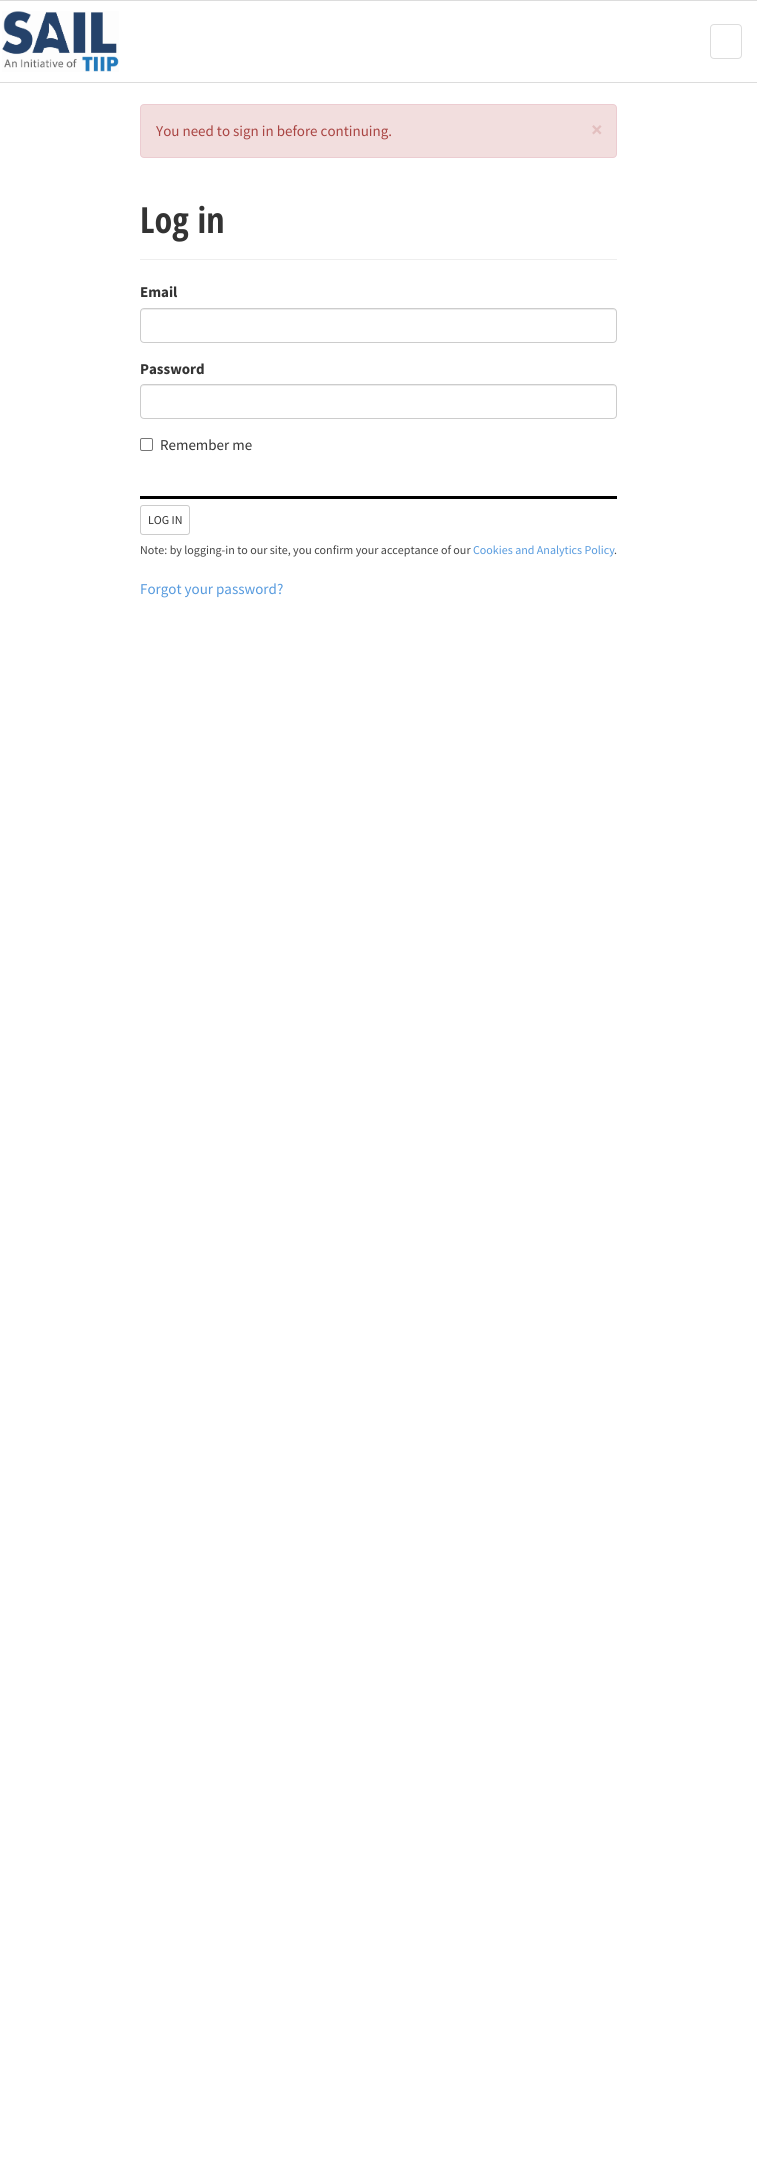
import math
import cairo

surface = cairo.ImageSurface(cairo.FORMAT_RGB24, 757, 2182)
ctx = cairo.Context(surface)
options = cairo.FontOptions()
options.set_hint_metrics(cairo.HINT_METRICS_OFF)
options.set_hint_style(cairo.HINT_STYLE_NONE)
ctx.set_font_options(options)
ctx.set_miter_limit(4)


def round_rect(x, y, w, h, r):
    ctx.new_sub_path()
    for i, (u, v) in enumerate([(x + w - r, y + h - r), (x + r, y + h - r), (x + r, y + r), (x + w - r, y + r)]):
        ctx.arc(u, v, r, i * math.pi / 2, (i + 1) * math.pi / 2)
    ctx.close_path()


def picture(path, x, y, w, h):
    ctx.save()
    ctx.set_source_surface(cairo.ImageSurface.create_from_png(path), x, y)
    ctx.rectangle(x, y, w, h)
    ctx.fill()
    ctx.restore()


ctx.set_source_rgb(1, 1, 1)
ctx.paint()
ctx.set_source_rgb(0.863, 0.863, 0.863)
ctx.rectangle(0, 0, 757, 1)
ctx.fill()
ctx.rectangle(0, 82, 757, 1)
ctx.fill()
picture("img1.png", 2, 11, 117, 61)
round_rect(710.5, 24.5, 31, 34, 3.5)
ctx.set_source_rgb(0.867, 0.867, 0.867)
ctx.set_line_width(1)
ctx.stroke()
ctx.set_source_rgb(0.949, 0.871, 0.871)
round_rect(140.5, 104.5, 476, 53, 3.5)
ctx.fill_preserve()
ctx.set_source_rgb(0.922, 0.8, 0.82)
ctx.stroke()
ctx.select_font_face("Source Sans Pro")
ctx.set_font_size(15)
ctx.set_source_rgb(0.663, 0.267, 0.259)
ctx.move_to(156, 136)
ctx.show_text("You need to sign in before continuing.")
ctx.select_font_face("Source Sans Pro", cairo.FONT_SLANT_NORMAL, cairo.FONT_WEIGHT_BOLD)
ctx.set_font_size(22)
ctx.set_source_rgb(0.89, 0.749, 0.749)
ctx.move_to(591, 137)
ctx.show_text("×")
ctx.set_source_rgb(0.933, 0.933, 0.933)
ctx.rectangle(140, 259, 477, 1)
ctx.fill()
ctx.select_font_face("Open Sans Condensed", cairo.FONT_SLANT_NORMAL, cairo.FONT_WEIGHT_BOLD)
ctx.set_font_size(36)
ctx.set_source_rgb(0.2, 0.2, 0.2)
ctx.move_to(140, 233)
ctx.show_text("Log in")
ctx.select_font_face("Source Sans Pro", cairo.FONT_SLANT_NORMAL, cairo.FONT_WEIGHT_BOLD)
ctx.set_font_size(15)
ctx.move_to(140, 297)
ctx.show_text("Email")
ctx.set_source_rgb(0.925, 0.925, 0.925)
ctx.new_path()
ctx.move_to(144, 310)
ctx.line_to(613, 310)
ctx.curve_to(615, 310, 616, 311, 616, 313)
ctx.curve_to(616, 311, 615, 309, 613, 309)
ctx.line_to(143, 309)
ctx.line_to(141, 311)
ctx.line_to(141, 313)
ctx.curve_to(141, 311, 142, 310, 144, 310)
ctx.close_path()
ctx.fill()
round_rect(140.5, 308.5, 476, 34, 3.5)
ctx.set_source_rgb(0.8, 0.8, 0.8)
ctx.stroke()
ctx.set_source_rgb(0.2, 0.2, 0.2)
ctx.move_to(140, 374)
ctx.show_text("Password")
ctx.set_source_rgb(0.925, 0.925, 0.925)
ctx.new_path()
ctx.move_to(144, 386)
ctx.line_to(613, 386)
ctx.curve_to(615, 386, 616, 387, 616, 389)
ctx.curve_to(616, 387, 615, 385, 613, 385)
ctx.line_to(143, 385)
ctx.line_to(141, 387)
ctx.line_to(141, 389)
ctx.curve_to(141, 387, 142, 386, 144, 386)
ctx.close_path()
ctx.fill()
round_rect(140.5, 384.5, 476, 34, 3.5)
ctx.set_source_rgb(0.8, 0.8, 0.8)
ctx.stroke()
round_rect(140.5, 438.5, 12, 12, 1.5)
ctx.set_source_rgb(0.463, 0.463, 0.463)
ctx.stroke()
ctx.select_font_face("Source Sans Pro")
ctx.set_source_rgb(0.2, 0.2, 0.2)
ctx.move_to(160, 450)
ctx.show_text("Remember me")
ctx.set_source_rgb(0, 0, 0)
ctx.rectangle(140, 496, 477, 3)
ctx.fill()
round_rect(140.5, 505.5, 49, 29, 2.5)
ctx.set_source_rgb(0.8, 0.8, 0.8)
ctx.stroke()
ctx.set_font_size(12)
ctx.set_source_rgb(0.2, 0.2, 0.2)
ctx.move_to(148, 524)
ctx.show_text("LOG IN")
ctx.set_source_rgb(0.267, 0.267, 0.267)
ctx.move_to(140, 554)
ctx.show_text("Note: by logging-in to our site, you confirm your acceptance of our")
ctx.set_source_rgb(0.337, 0.604, 0.871)
ctx.move_to(473, 554)
ctx.show_text("Cookies and Analytics Policy")
ctx.set_source_rgb(0.267, 0.267, 0.267)
ctx.move_to(614, 554)
ctx.show_text(".")
ctx.set_font_size(15)
ctx.set_source_rgb(0.337, 0.604, 0.871)
ctx.move_to(140, 594)
ctx.show_text("Forgot your password?")
surface.write_to_png("page.png")
